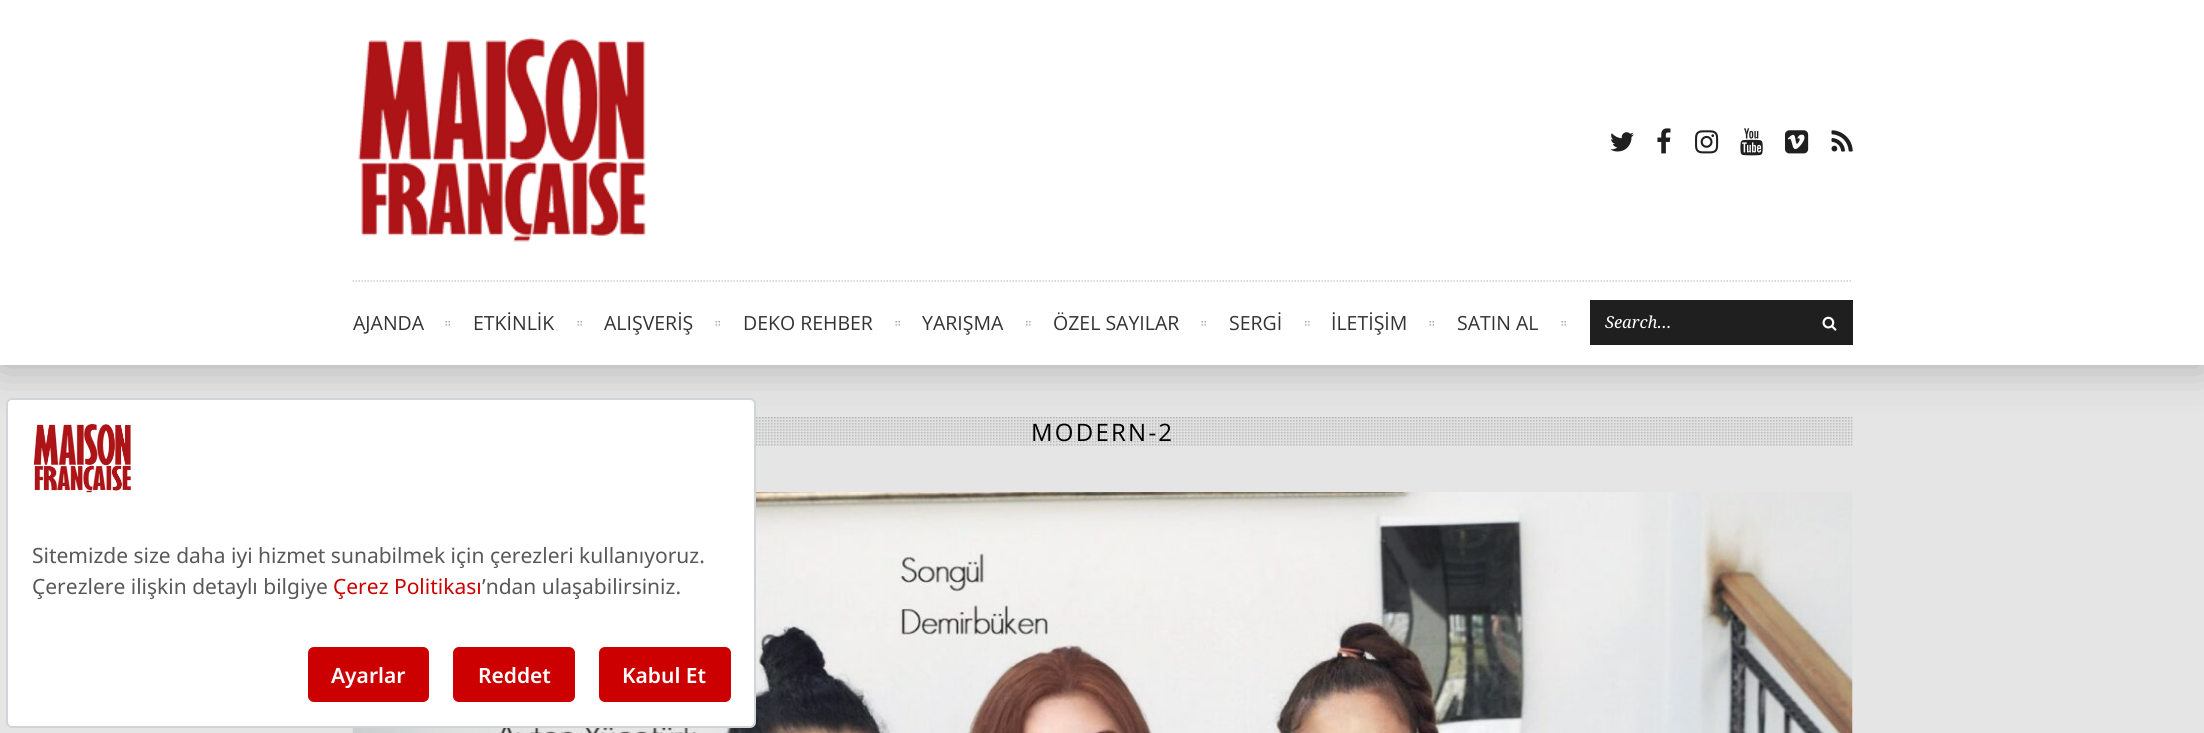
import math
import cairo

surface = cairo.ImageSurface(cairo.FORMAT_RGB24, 2204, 733)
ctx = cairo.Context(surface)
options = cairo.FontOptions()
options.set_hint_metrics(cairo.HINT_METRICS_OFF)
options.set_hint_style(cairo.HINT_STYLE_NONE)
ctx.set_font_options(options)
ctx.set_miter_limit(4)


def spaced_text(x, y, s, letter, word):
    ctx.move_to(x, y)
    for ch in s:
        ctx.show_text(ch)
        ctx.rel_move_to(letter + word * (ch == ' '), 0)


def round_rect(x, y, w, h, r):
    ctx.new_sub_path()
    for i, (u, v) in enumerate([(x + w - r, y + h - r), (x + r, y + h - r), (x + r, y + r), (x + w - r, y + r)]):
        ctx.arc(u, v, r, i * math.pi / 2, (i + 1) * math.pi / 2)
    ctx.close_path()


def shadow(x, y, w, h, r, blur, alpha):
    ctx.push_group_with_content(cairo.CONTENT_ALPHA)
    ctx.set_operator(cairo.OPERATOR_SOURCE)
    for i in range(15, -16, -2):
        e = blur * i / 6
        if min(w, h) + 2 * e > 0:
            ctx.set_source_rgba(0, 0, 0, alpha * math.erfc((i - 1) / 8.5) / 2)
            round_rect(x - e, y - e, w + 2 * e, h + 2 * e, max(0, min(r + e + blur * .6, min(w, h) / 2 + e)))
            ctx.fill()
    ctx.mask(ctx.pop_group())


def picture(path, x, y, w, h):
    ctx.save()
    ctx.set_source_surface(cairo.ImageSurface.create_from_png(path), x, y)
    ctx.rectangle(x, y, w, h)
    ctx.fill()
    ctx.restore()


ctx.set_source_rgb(0.898, 0.898, 0.898)
ctx.paint()
ctx.set_source_rgb(0, 0, 0)
shadow(0, 0, 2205, 365, 0, 22.5, 0.25)
ctx.set_source_rgb(1, 1, 1)
ctx.rectangle(0, 0, 2204, 365)
ctx.fill()
picture("img1.png", 358, 37, 288, 205)
picture("img2.png", 1610, 132, 24, 20)
picture("img3.png", 1657, 128, 14, 26)
picture("img4.png", 1695, 130, 24, 24)
picture("img5.png", 1740, 128, 23, 28)
picture("img6.png", 1785, 130, 24, 24)
picture("img7.png", 1831, 130, 22, 22)
ctx.new_path()
ctx.move_to(352.5, 281)
ctx.line_to(1852.5, 281)
ctx.set_source_rgb(0.8, 0.8, 0.8)
ctx.set_line_width(1.5)
ctx.set_dash([1.5, 1.5])
ctx.stroke()
picture("img8.png", 445, 321, 5, 5)
ctx.select_font_face("Open Sans")
ctx.set_font_size(19.5)
ctx.set_source_rgb(0.2, 0.2, 0.2)
ctx.move_to(353, 330)
ctx.show_text("AJANDA")
picture("img9.png", 577, 321, 5, 5)
ctx.move_to(473, 330)
ctx.show_text("ETKİNLİK")
picture("img9.png", 715, 321, 5, 5)
ctx.move_to(604, 330)
ctx.show_text("ALIŞVERİŞ")
picture("img8.png", 895, 321, 5, 5)
ctx.move_to(743, 330)
ctx.show_text("DEKO REHBER")
picture("img10.png", 1026, 321, 5, 5)
ctx.move_to(922, 330)
ctx.show_text("YARIŞMA")
picture("img9.png", 1201, 321, 5, 5)
ctx.move_to(1053, 330)
ctx.show_text("ÖZEL SAYILAR")
picture("img11.png", 1305, 321, 5, 5)
ctx.move_to(1229, 330)
ctx.show_text("SERGİ")
picture("img9.png", 1429, 321, 5, 5)
ctx.move_to(1331, 330)
ctx.show_text("İLETİŞİM")
picture("img8.png", 1561, 321, 5, 5)
ctx.move_to(1457, 330)
ctx.show_text("SATIN AL")
ctx.set_source_rgb(0.122, 0.122, 0.122)
ctx.rectangle(1590, 300, 263, 45)
ctx.fill()
ctx.select_font_face("Droid Serif", cairo.FONT_SLANT_ITALIC)
ctx.set_font_size(16.5)
ctx.set_source_rgb(1, 1, 1)
ctx.move_to(1605, 328)
ctx.show_text("Search...")
picture("img12.png", 1822, 316, 15, 15)
picture("img13.png", 756, 417, 1097, 29)
ctx.select_font_face("Open Sans")
ctx.set_font_size(24)
ctx.set_source_rgb(0, 0, 0)
spaced_text(1031, 441, "MODERN-2", 2.25, 0)
picture("img14.png", 352, 492, 1501, 241)
ctx.set_source_rgb(1, 1, 1)
round_rect(7, 399, 748, 328, 5)
ctx.fill_preserve()
ctx.set_source_rgb(0.82, 0.835, 0.859)
ctx.set_line_width(2)
ctx.set_dash([])
ctx.stroke()
picture("img15.png", 33, 423, 99, 70)
ctx.select_font_face("Noto Sans")
ctx.set_font_size(21)
ctx.set_source_rgb(0.345, 0.345, 0.345)
ctx.move_to(32, 563)
ctx.show_text("Sitemizde size daha iyi hizmet sunabilmek için çerezleri kullanıyoruz.")
ctx.move_to(32, 594)
ctx.show_text("Çerezlere ilişkin detaylı bilgiye")
ctx.set_source_rgb(0.8, 0, 0)
ctx.move_to(333, 594)
ctx.show_text("Çerez Politikası")
ctx.set_source_rgb(0.345, 0.345, 0.345)
ctx.move_to(482, 594)
ctx.show_text("’ndan ulaşabilirsiniz.")
ctx.set_source_rgb(0.8, 0, 0)
round_rect(308, 647, 121, 55, 6)
ctx.fill()
ctx.select_font_face("Noto Sans SemiBold")
ctx.set_source_rgb(1, 1, 1)
ctx.move_to(331, 683)
ctx.show_text("Ayarlar")
ctx.set_source_rgb(0.8, 0, 0)
round_rect(453, 647, 122, 55, 6)
ctx.fill()
ctx.set_source_rgb(1, 1, 1)
ctx.move_to(478, 683)
ctx.show_text("Reddet")
ctx.set_source_rgb(0.8, 0, 0)
round_rect(599, 647, 132, 55, 6)
ctx.fill()
ctx.set_source_rgb(1, 1, 1)
ctx.move_to(622, 683)
ctx.show_text("Kabul Et")
surface.write_to_png("page.png")
